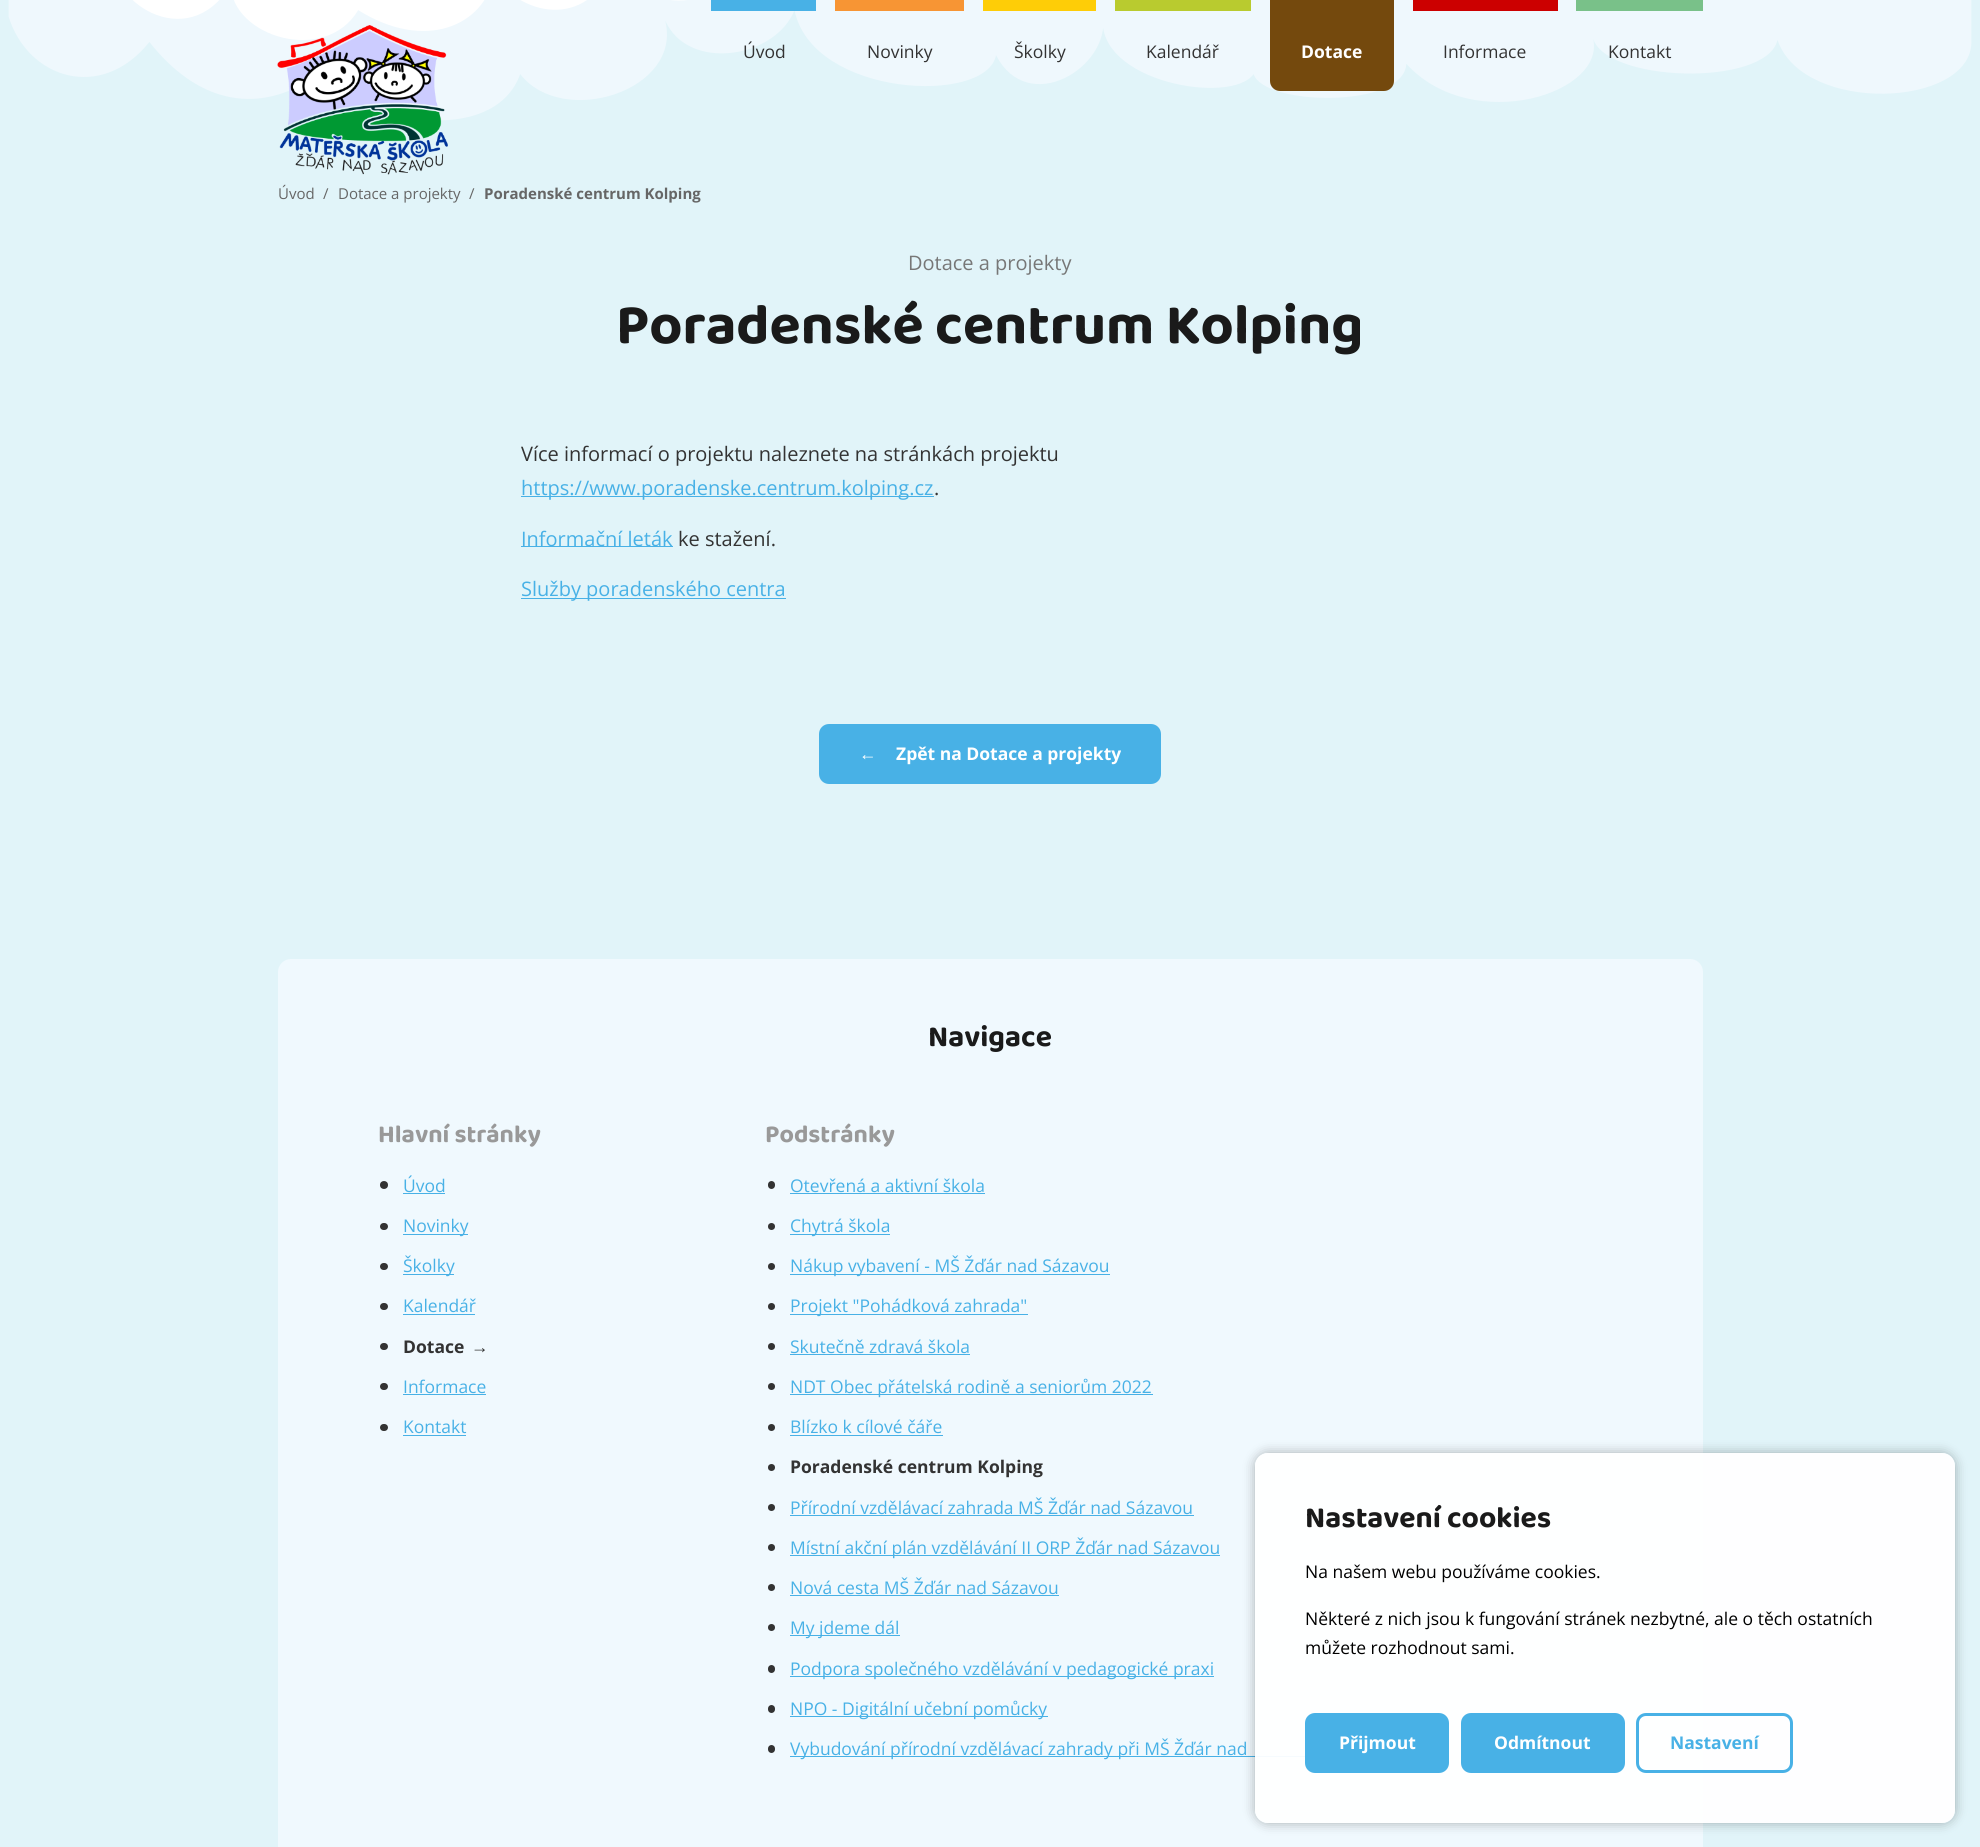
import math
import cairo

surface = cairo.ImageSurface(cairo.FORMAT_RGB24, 1980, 1847)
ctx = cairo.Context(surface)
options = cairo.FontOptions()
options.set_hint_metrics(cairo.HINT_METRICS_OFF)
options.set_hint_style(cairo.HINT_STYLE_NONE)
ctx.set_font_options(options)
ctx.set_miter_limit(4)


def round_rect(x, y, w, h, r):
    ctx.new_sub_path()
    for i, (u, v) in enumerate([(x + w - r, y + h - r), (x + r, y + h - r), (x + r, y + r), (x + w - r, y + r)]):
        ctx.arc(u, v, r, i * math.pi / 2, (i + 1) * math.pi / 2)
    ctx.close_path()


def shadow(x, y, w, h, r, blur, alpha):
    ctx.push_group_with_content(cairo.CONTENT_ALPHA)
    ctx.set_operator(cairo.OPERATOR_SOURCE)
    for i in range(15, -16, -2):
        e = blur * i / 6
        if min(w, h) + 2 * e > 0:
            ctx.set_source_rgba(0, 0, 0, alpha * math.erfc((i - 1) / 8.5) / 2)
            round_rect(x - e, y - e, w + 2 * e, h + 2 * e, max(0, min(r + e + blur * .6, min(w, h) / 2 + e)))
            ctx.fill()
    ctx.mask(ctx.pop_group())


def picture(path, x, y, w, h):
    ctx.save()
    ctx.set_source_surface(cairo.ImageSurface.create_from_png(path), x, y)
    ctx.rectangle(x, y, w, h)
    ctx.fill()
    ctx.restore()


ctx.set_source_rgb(0.882, 0.957, 0.973)
ctx.paint()
picture("img1.png", 8, 0, 1964, 121)
picture("img2.png", 277, 25, 171, 150)
ctx.set_source_rgb(0.282, 0.694, 0.902)
ctx.rectangle(711, 0, 105, 11)
ctx.fill()
ctx.select_font_face("Open Sans")
ctx.set_font_size(17.5)
ctx.set_source_rgb(0.2, 0.2, 0.2)
ctx.move_to(743, 58)
ctx.show_text("Úvod")
ctx.set_source_rgb(0.965, 0.584, 0.204)
ctx.rectangle(835, 0, 129, 11)
ctx.fill()
ctx.set_source_rgb(0.2, 0.2, 0.2)
ctx.move_to(867, 58)
ctx.show_text("Novinky")
ctx.set_source_rgb(0.996, 0.804, 0.031)
ctx.rectangle(983, 0, 113, 11)
ctx.fill()
ctx.set_source_rgb(0.2, 0.2, 0.2)
ctx.move_to(1014, 58)
ctx.show_text("Školky")
ctx.set_source_rgb(0.725, 0.796, 0.184)
ctx.rectangle(1115, 0, 136, 11)
ctx.fill()
ctx.set_source_rgb(0.2, 0.2, 0.2)
ctx.move_to(1146, 58)
ctx.show_text("Kalendář")
ctx.set_source_rgb(0.455, 0.286, 0.051)
ctx.rectangle(1270, 0, 124, 10)
ctx.fill()
ctx.new_path()
ctx.move_to(1270, 10)
ctx.line_to(1394, 10)
ctx.line_to(1394, 81)
ctx.curve_to(1394, 86.5, 1389.5, 91, 1384, 91)
ctx.line_to(1280, 91)
ctx.curve_to(1274.5, 91, 1270, 86.5, 1270, 81)
ctx.close_path()
ctx.fill()
ctx.select_font_face("Open Sans", cairo.FONT_SLANT_NORMAL, cairo.FONT_WEIGHT_BOLD)
ctx.set_source_rgb(1, 1, 1)
ctx.move_to(1301, 58)
ctx.show_text("Dotace")
ctx.set_source_rgb(0.8, 0, 0)
ctx.rectangle(1413, 0, 145, 11)
ctx.fill()
ctx.select_font_face("Open Sans")
ctx.set_source_rgb(0.2, 0.2, 0.2)
ctx.move_to(1443, 58)
ctx.show_text("Informace")
ctx.set_source_rgb(0.475, 0.757, 0.537)
ctx.rectangle(1576, 0, 127, 11)
ctx.fill()
ctx.set_source_rgb(0.2, 0.2, 0.2)
ctx.move_to(1608, 58)
ctx.show_text("Kontakt")
ctx.set_font_size(15)
ctx.set_source_rgb(0.4, 0.4, 0.4)
ctx.move_to(278, 199)
ctx.show_text("Úvod")
ctx.move_to(323, 199)
ctx.show_text("/")
ctx.move_to(338, 199)
ctx.show_text("Dotace a projekty")
ctx.move_to(469, 199)
ctx.show_text("/")
ctx.select_font_face("Open Sans", cairo.FONT_SLANT_NORMAL, cairo.FONT_WEIGHT_BOLD)
ctx.move_to(484, 199)
ctx.show_text("Poradenské centrum Kolping")
ctx.select_font_face("Open Sans")
ctx.set_font_size(20)
ctx.set_source_rgb(0.467, 0.467, 0.467)
ctx.move_to(908, 270)
ctx.show_text("Dotace a projekty")
ctx.select_font_face("Baloo 2", cairo.FONT_SLANT_NORMAL, cairo.FONT_WEIGHT_BOLD)
ctx.set_font_size(57.5)
ctx.set_source_rgb(0.102, 0.102, 0.102)
ctx.move_to(616, 343)
ctx.show_text("Poradenské centrum Kolping")
ctx.select_font_face("Open Sans")
ctx.set_font_size(20)
ctx.set_source_rgb(0.2, 0.2, 0.2)
ctx.move_to(521, 461)
ctx.show_text("Více informací o projektu naleznete na stránkách projektu")
ctx.set_source_rgb(0.282, 0.694, 0.902)
ctx.rectangle(521, 496, 413, 1)
ctx.fill()
ctx.move_to(521, 495)
ctx.show_text("https://www.poradenske.centrum.kolping.cz")
ctx.set_source_rgb(0.2, 0.2, 0.2)
ctx.move_to(934, 495)
ctx.show_text(".")
ctx.set_source_rgb(0.282, 0.694, 0.902)
ctx.rectangle(521, 546, 152, 1)
ctx.fill()
ctx.move_to(521, 546)
ctx.show_text("Informační leták")
ctx.set_source_rgb(0.2, 0.2, 0.2)
ctx.move_to(678, 546)
ctx.show_text("ke stažení.")
ctx.set_source_rgb(0.282, 0.694, 0.902)
ctx.rectangle(521, 598, 265, 1)
ctx.fill()
ctx.move_to(521, 596)
ctx.show_text("Služby poradenského centra")
round_rect(820.5, 725.5, 339, 57, 8.5)
ctx.fill_preserve()
ctx.set_line_width(3)
ctx.stroke()
ctx.select_font_face("Liberation Sans", cairo.FONT_SLANT_NORMAL, cairo.FONT_WEIGHT_BOLD)
ctx.set_font_size(17.5)
ctx.set_source_rgb(1, 1, 1)
ctx.move_to(859, 760)
ctx.show_text("←")
ctx.select_font_face("Open Sans", cairo.FONT_SLANT_NORMAL, cairo.FONT_WEIGHT_BOLD)
ctx.move_to(896, 760)
ctx.show_text("Zpět na Dotace a projekty")
ctx.set_source_rgb(0.941, 0.976, 0.996)
round_rect(278, 959, 1425, 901, 13)
ctx.fill()
ctx.select_font_face("Baloo 2", cairo.FONT_SLANT_NORMAL, cairo.FONT_WEIGHT_BOLD)
ctx.set_font_size(30)
ctx.set_source_rgb(0.102, 0.102, 0.102)
ctx.move_to(928, 1046)
ctx.show_text("Navigace")
ctx.set_font_size(25)
ctx.set_source_rgb(0.6, 0.6, 0.6)
ctx.move_to(378, 1142)
ctx.show_text("Hlavní stránky")
ctx.set_source_rgb(0.2, 0.2, 0.2)
ctx.new_path()
ctx.arc(384, 1185, 4, 0, 2 * math.pi)
ctx.fill()
ctx.select_font_face("Open Sans")
ctx.set_font_size(17.5)
ctx.set_source_rgb(0.282, 0.694, 0.902)
ctx.move_to(403, 1192)
ctx.show_text("Úvod")
ctx.rectangle(403, 1193, 42, 1)
ctx.fill()
ctx.set_source_rgb(0.2, 0.2, 0.2)
round_rect(380, 1223, 8, 7, 3.5)
ctx.fill()
ctx.set_source_rgb(0.282, 0.694, 0.902)
ctx.rectangle(403, 1234, 65, 1)
ctx.fill()
ctx.move_to(403, 1232)
ctx.show_text("Novinky")
ctx.set_source_rgb(0.2, 0.2, 0.2)
round_rect(380, 1263, 8, 7, 3.5)
ctx.fill()
ctx.set_source_rgb(0.282, 0.694, 0.902)
ctx.rectangle(403, 1274, 51, 1)
ctx.fill()
ctx.move_to(403, 1272)
ctx.show_text("Školky")
ctx.set_source_rgb(0.2, 0.2, 0.2)
round_rect(380, 1303, 8, 7, 3.5)
ctx.fill()
ctx.set_source_rgb(0.282, 0.694, 0.902)
ctx.move_to(403, 1312)
ctx.show_text("Kalendář")
ctx.rectangle(403, 1314, 72, 1)
ctx.fill()
ctx.set_source_rgb(0.2, 0.2, 0.2)
round_rect(380, 1343, 8, 7, 3.5)
ctx.fill()
ctx.select_font_face("Open Sans", cairo.FONT_SLANT_NORMAL, cairo.FONT_WEIGHT_BOLD)
ctx.move_to(403, 1353)
ctx.show_text("Dotace")
ctx.select_font_face("Liberation Sans", cairo.FONT_SLANT_NORMAL, cairo.FONT_WEIGHT_BOLD)
ctx.move_to(471, 1353)
ctx.show_text("→")
round_rect(380, 1383, 8, 7, 3.5)
ctx.fill()
ctx.select_font_face("Open Sans")
ctx.set_source_rgb(0.282, 0.694, 0.902)
ctx.move_to(403, 1393)
ctx.show_text("Informace")
ctx.rectangle(403, 1394, 83, 1)
ctx.fill()
ctx.set_source_rgb(0.2, 0.2, 0.2)
round_rect(380, 1424, 8, 7, 3.5)
ctx.fill()
ctx.set_source_rgb(0.282, 0.694, 0.902)
ctx.move_to(403, 1433)
ctx.show_text("Kontakt")
ctx.rectangle(403, 1435, 63, 1)
ctx.fill()
ctx.select_font_face("Baloo 2", cairo.FONT_SLANT_NORMAL, cairo.FONT_WEIGHT_BOLD)
ctx.set_font_size(25)
ctx.set_source_rgb(0.6, 0.6, 0.6)
ctx.move_to(765, 1142)
ctx.show_text("Podstránky")
ctx.set_source_rgb(0.2, 0.2, 0.2)
round_rect(768, 1181, 7, 8, 3.5)
ctx.fill()
ctx.select_font_face("Open Sans")
ctx.set_font_size(17.5)
ctx.set_source_rgb(0.282, 0.694, 0.902)
ctx.move_to(790, 1192)
ctx.show_text("Otevřená a aktivní škola")
ctx.rectangle(790, 1193, 195, 1)
ctx.fill()
ctx.set_source_rgb(0.2, 0.2, 0.2)
ctx.arc(771.5, 1226.5, 3.5, 0, 2 * math.pi)
ctx.fill()
ctx.set_source_rgb(0.282, 0.694, 0.902)
ctx.rectangle(790, 1234, 100, 1)
ctx.fill()
ctx.move_to(790, 1232)
ctx.show_text("Chytrá škola")
ctx.set_source_rgb(0.2, 0.2, 0.2)
ctx.new_path()
ctx.arc(771.5, 1266.5, 3.5, 0, 2 * math.pi)
ctx.fill()
ctx.set_source_rgb(0.282, 0.694, 0.902)
ctx.rectangle(790, 1274, 320, 1)
ctx.fill()
ctx.move_to(790, 1272)
ctx.show_text("Nákup vybavení - MŠ Žďár nad Sázavou")
ctx.set_source_rgb(0.2, 0.2, 0.2)
ctx.new_path()
ctx.arc(771.5, 1306.5, 3.5, 0, 2 * math.pi)
ctx.fill()
ctx.set_source_rgb(0.282, 0.694, 0.902)
ctx.rectangle(790, 1314, 238, 1)
ctx.fill()
ctx.move_to(790, 1312)
ctx.show_text("Projekt \"Pohádková zahrada\"")
ctx.set_source_rgb(0.2, 0.2, 0.2)
ctx.new_path()
ctx.arc(771.5, 1346.5, 3.5, 0, 2 * math.pi)
ctx.fill()
ctx.set_source_rgb(0.282, 0.694, 0.902)
ctx.move_to(790, 1353)
ctx.show_text("Skutečně zdravá škola")
ctx.rectangle(790, 1354, 180, 1)
ctx.fill()
ctx.set_source_rgb(0.2, 0.2, 0.2)
ctx.arc(771.5, 1386.5, 3.5, 0, 2 * math.pi)
ctx.fill()
ctx.set_source_rgb(0.282, 0.694, 0.902)
ctx.rectangle(790, 1394, 363, 1)
ctx.fill()
ctx.move_to(790, 1393)
ctx.show_text("NDT Obec přátelská rodině a seniorům 2022")
ctx.set_source_rgb(0.2, 0.2, 0.2)
ctx.new_path()
ctx.arc(771.5, 1427.5, 3.5, 0, 2 * math.pi)
ctx.fill()
ctx.set_source_rgb(0.282, 0.694, 0.902)
ctx.move_to(790, 1433)
ctx.show_text("Blízko k cílové čáře")
ctx.rectangle(790, 1435, 153, 1)
ctx.fill()
ctx.set_source_rgb(0.2, 0.2, 0.2)
ctx.arc(771.5, 1467.5, 3.5, 0, 2 * math.pi)
ctx.fill()
ctx.select_font_face("Open Sans", cairo.FONT_SLANT_NORMAL, cairo.FONT_WEIGHT_BOLD)
ctx.move_to(790, 1473)
ctx.show_text("Poradenské centrum Kolping")
ctx.new_path()
ctx.arc(771.5, 1507.5, 3.5, 0, 2 * math.pi)
ctx.fill()
ctx.select_font_face("Open Sans")
ctx.set_source_rgb(0.282, 0.694, 0.902)
ctx.move_to(790, 1514)
ctx.show_text("Přírodní vzdělávací zahrada MŠ Žďár nad Sázavou")
ctx.rectangle(790, 1515, 404, 1)
ctx.fill()
ctx.set_source_rgb(0.2, 0.2, 0.2)
ctx.arc(771.5, 1547.5, 3.5, 0, 2 * math.pi)
ctx.fill()
ctx.set_source_rgb(0.282, 0.694, 0.902)
ctx.rectangle(790, 1555, 430, 1)
ctx.fill()
ctx.move_to(790, 1554)
ctx.show_text("Místní akční plán vzdělávání II ORP Žďár nad Sázavou")
ctx.set_source_rgb(0.2, 0.2, 0.2)
ctx.new_path()
ctx.arc(771.5, 1587.5, 3.5, 0, 2 * math.pi)
ctx.fill()
ctx.set_source_rgb(0.282, 0.694, 0.902)
ctx.move_to(790, 1594)
ctx.show_text("Nová cesta MŠ Žďár nad Sázavou")
ctx.rectangle(790, 1595, 269, 1)
ctx.fill()
ctx.set_source_rgb(0.2, 0.2, 0.2)
ctx.arc(771.5, 1627.5, 3.5, 0, 2 * math.pi)
ctx.fill()
ctx.set_source_rgb(0.282, 0.694, 0.902)
ctx.rectangle(790, 1635, 110, 1)
ctx.fill()
ctx.move_to(790, 1634)
ctx.show_text("My jdeme dál")
ctx.set_source_rgb(0.2, 0.2, 0.2)
round_rect(768, 1665, 7, 8, 3.5)
ctx.fill()
ctx.set_source_rgb(0.282, 0.694, 0.902)
ctx.rectangle(790, 1676, 424, 1)
ctx.fill()
ctx.move_to(790, 1675)
ctx.show_text("Podpora společného vzdělávání v pedagogické praxi")
ctx.set_source_rgb(0.2, 0.2, 0.2)
round_rect(768, 1705, 7, 8, 3.5)
ctx.fill()
ctx.set_source_rgb(0.282, 0.694, 0.902)
ctx.rectangle(790, 1716, 258, 1)
ctx.fill()
ctx.move_to(790, 1715)
ctx.show_text("NPO - Digitální učební pomůcky")
ctx.set_source_rgb(0.2, 0.2, 0.2)
round_rect(768, 1745, 7, 8, 3.5)
ctx.fill()
ctx.set_source_rgb(0.282, 0.694, 0.902)
ctx.rectangle(790, 1756, 515, 1)
ctx.fill()
ctx.move_to(790, 1755)
ctx.show_text("Vybudování přírodní vzdělávací zahrady při MŠ Žďár nad")
ctx.save()
ctx.set_fill_rule(cairo.FILL_RULE_EVEN_ODD)
ctx.new_path()
ctx.move_to(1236, 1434)
ctx.line_to(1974, 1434)
ctx.line_to(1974, 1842)
ctx.line_to(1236, 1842)
ctx.close_path()
ctx.move_to(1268, 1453)
ctx.line_to(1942, 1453)
ctx.curve_to(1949, 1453, 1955, 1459, 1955, 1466)
ctx.line_to(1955, 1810)
ctx.curve_to(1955, 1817, 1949, 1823, 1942, 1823)
ctx.line_to(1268, 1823)
ctx.curve_to(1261, 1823, 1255, 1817, 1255, 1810)
ctx.line_to(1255, 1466)
ctx.curve_to(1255, 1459, 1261, 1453, 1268, 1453)
ctx.close_path()
ctx.clip()
ctx.set_source_rgb(0, 0, 0)
shadow(1255, 1453, 700, 370, 13, 6, 0.3)
ctx.restore()
ctx.set_source_rgba(1, 1, 1, 0.95)
round_rect(1255, 1453, 700, 370, 13)
ctx.fill()
ctx.select_font_face("Baloo 2", cairo.FONT_SLANT_NORMAL, cairo.FONT_WEIGHT_BOLD)
ctx.set_font_size(30)
ctx.set_source_rgb(0.102, 0.102, 0.102)
ctx.move_to(1305, 1527)
ctx.show_text("Nastavení cookies")
ctx.select_font_face("Open Sans")
ctx.set_font_size(17.5)
ctx.set_source_rgb(0, 0, 0)
ctx.move_to(1305, 1578)
ctx.show_text("Na našem webu používáme cookies.")
ctx.move_to(1305, 1625)
ctx.show_text("Některé z nich jsou k fungování stránek nezbytné, ale o těch ostatních")
ctx.move_to(1305, 1654)
ctx.show_text("můžete rozhodnout sami.")
ctx.set_source_rgb(0.282, 0.694, 0.902)
round_rect(1306.5, 1714.5, 141, 57, 8.5)
ctx.fill_preserve()
ctx.stroke()
ctx.select_font_face("Open Sans", cairo.FONT_SLANT_NORMAL, cairo.FONT_WEIGHT_BOLD)
ctx.set_source_rgb(1, 1, 1)
ctx.move_to(1339, 1749)
ctx.show_text("Přijmout")
ctx.set_source_rgb(0.282, 0.694, 0.902)
round_rect(1462.5, 1714.5, 161, 57, 8.5)
ctx.fill_preserve()
ctx.stroke()
ctx.set_source_rgb(1, 1, 1)
ctx.move_to(1494, 1749)
ctx.show_text("Odmítnout")
round_rect(1637.5, 1714.5, 154, 57, 8.5)
ctx.set_source_rgb(0.282, 0.694, 0.902)
ctx.stroke()
ctx.move_to(1670, 1749)
ctx.show_text("Nastavení")
surface.write_to_png("page.png")
